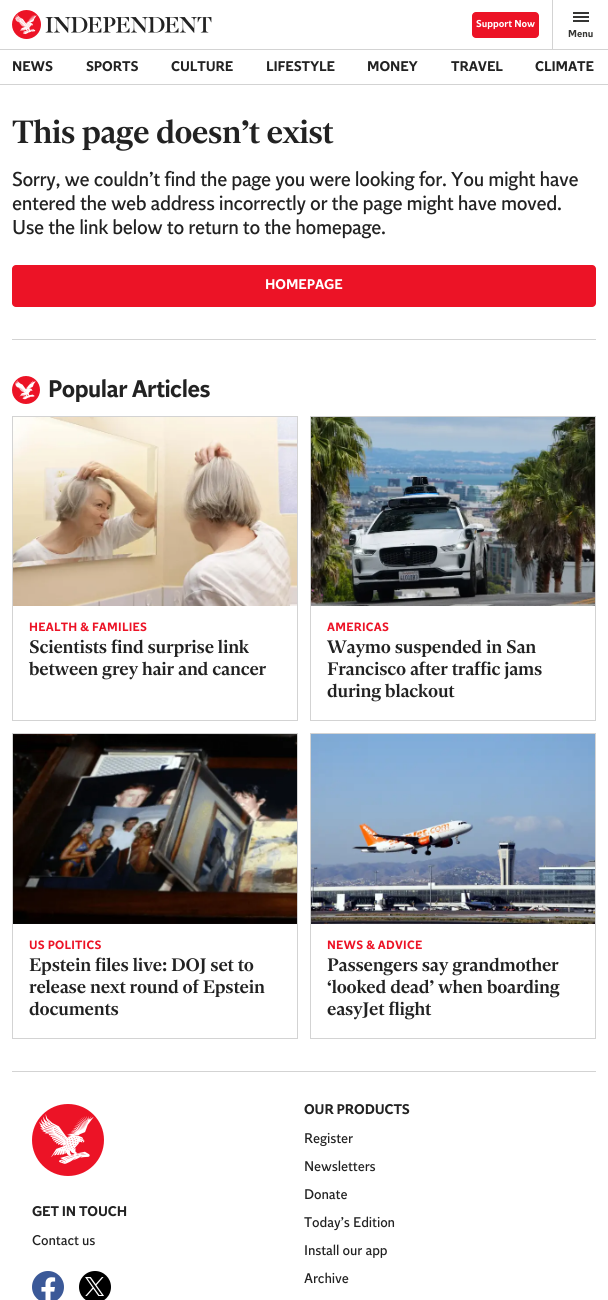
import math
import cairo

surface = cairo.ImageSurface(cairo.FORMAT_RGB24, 608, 1300)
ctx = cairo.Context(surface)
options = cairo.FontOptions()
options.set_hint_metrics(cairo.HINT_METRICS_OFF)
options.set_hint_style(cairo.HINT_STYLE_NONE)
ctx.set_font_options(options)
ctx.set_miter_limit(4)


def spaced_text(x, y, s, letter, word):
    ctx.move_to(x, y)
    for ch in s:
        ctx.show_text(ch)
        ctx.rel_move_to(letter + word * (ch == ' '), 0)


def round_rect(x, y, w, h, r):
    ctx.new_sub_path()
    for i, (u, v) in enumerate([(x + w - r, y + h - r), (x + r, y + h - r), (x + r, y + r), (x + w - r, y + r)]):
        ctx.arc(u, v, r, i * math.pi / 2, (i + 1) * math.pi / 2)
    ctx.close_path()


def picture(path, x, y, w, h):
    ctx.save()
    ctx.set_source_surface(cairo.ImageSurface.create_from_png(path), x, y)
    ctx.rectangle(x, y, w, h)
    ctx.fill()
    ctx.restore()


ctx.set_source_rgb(1, 1, 1)
ctx.paint()
ctx.set_source_rgb(0.922, 0.078, 0.149)
ctx.arc(26.5, 24.5, 14.5, 0, 2 * math.pi)
ctx.fill()
picture("img1.png", 15, 14, 22, 21)
picture("img2.png", 45, 17, 167, 16)
round_rect(472, 12, 67, 26, 4)
ctx.fill()
ctx.select_font_face("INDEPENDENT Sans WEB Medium")
ctx.set_font_size(10)
ctx.set_source_rgb(1, 1, 1)
ctx.move_to(476, 27)
ctx.show_text("Support Now")
ctx.set_source_rgb(0.827, 0.827, 0.827)
ctx.rectangle(552, 0, 1, 49)
ctx.fill()
picture("img3.png", 573, 12, 16, 10)
ctx.set_source_rgb(0.208, 0.208, 0.2)
ctx.move_to(568, 37)
ctx.show_text("Menu")
ctx.set_source_rgb(0.827, 0.827, 0.827)
ctx.rectangle(0, 49, 608, 1)
ctx.fill()
ctx.rectangle(0, 84, 608, 1)
ctx.fill()
ctx.set_font_size(14)
ctx.set_source_rgb(0.133, 0.133, 0.133)
spaced_text(12, 71, "NEWS", -0.1, 0)
spaced_text(86, 71, "SPORTS", -0.1, 0)
spaced_text(171, 71, "CULTURE", -0.1, 0)
spaced_text(266, 71, "LIFESTYLE", -0.1, 0)
spaced_text(367, 71, "MONEY", -0.1, 0)
spaced_text(451, 71, "TRAVEL", -0.1, 0)
spaced_text(535, 71, "CLIMATE", -0.1, 0)
ctx.select_font_face("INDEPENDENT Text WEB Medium")
ctx.set_font_size(32)
spaced_text(12, 143, "This page doesn’t exist", -0.6, 0)
ctx.select_font_face("INDEPENDENT Sans WEB")
ctx.set_font_size(20)
spaced_text(12, 186, "Sorry, we couldn’t find the page you were looking for. You might have", -0.4, 0)
spaced_text(12, 210, "entered the web address incorrectly or the page might have moved.", -0.4, 0)
spaced_text(12, 234, "Use the link below to return to the homepage.", -0.4, 0)
ctx.set_source_rgb(0.922, 0.078, 0.149)
round_rect(12, 265, 584, 42, 4)
ctx.fill()
ctx.select_font_face("INDEPENDENT Sans WEB Medium")
ctx.set_font_size(14)
ctx.set_source_rgb(1, 1, 1)
spaced_text(265, 289, "HOMEPAGE", -0.1, 0)
ctx.set_source_rgb(0.827, 0.827, 0.827)
ctx.rectangle(12, 339, 584, 1)
ctx.fill()
ctx.set_source_rgb(0.922, 0.078, 0.149)
ctx.arc(26, 390, 14, 0, 2 * math.pi)
ctx.fill()
picture("img4.png", 15, 380, 21, 20)
ctx.set_font_size(24)
ctx.set_source_rgb(0.133, 0.133, 0.133)
spaced_text(48, 397, "Popular Articles", -0.5, 0)
ctx.rectangle(12.5, 416.5, 285, 304)
ctx.set_source_rgb(0.827, 0.827, 0.827)
ctx.set_line_width(1)
ctx.stroke()
picture("img5.png", 13, 417, 284, 189)
ctx.set_font_size(12)
ctx.set_source_rgb(0.922, 0.078, 0.149)
spaced_text(29, 631, "HEALTH & FAMILIES", 0.25, 0)
ctx.select_font_face("INDEPENDENT Text WEB Medium")
ctx.set_font_size(18)
ctx.set_source_rgb(0.133, 0.133, 0.133)
spaced_text(29, 653, "Scientists find surprise link", -0.2, 0)
spaced_text(29, 675, "between grey hair and cancer", -0.2, 0)
ctx.rectangle(310.5, 416.5, 285, 304)
ctx.set_source_rgb(0.827, 0.827, 0.827)
ctx.stroke()
picture("img6.png", 311, 417, 284, 189)
ctx.select_font_face("INDEPENDENT Sans WEB Medium")
ctx.set_font_size(12)
ctx.set_source_rgb(0.922, 0.078, 0.149)
spaced_text(327, 631, "AMERICAS", 0.25, 0)
ctx.select_font_face("INDEPENDENT Text WEB Medium")
ctx.set_font_size(18)
ctx.set_source_rgb(0.133, 0.133, 0.133)
spaced_text(327, 653, "Waymo suspended in San", -0.2, 0)
spaced_text(327, 675, "Francisco after traffic jams", -0.2, 0)
spaced_text(327, 697, "during blackout", -0.2, 0)
ctx.rectangle(12.5, 733.5, 285, 305)
ctx.set_source_rgb(0.827, 0.827, 0.827)
ctx.stroke()
picture("img7.png", 13, 734, 284, 190)
ctx.select_font_face("INDEPENDENT Sans WEB Medium")
ctx.set_font_size(12)
ctx.set_source_rgb(0.922, 0.078, 0.149)
spaced_text(29, 949, "US POLITICS", 0.25, 0)
ctx.select_font_face("INDEPENDENT Text WEB Medium")
ctx.set_font_size(18)
ctx.set_source_rgb(0.133, 0.133, 0.133)
spaced_text(29, 971, "Epstein files live: DOJ set to", -0.2, 0)
spaced_text(29, 993, "release next round of Epstein", -0.2, 0)
spaced_text(29, 1015, "documents", -0.2, 0)
ctx.rectangle(310.5, 733.5, 285, 305)
ctx.set_source_rgb(0.827, 0.827, 0.827)
ctx.stroke()
picture("img8.png", 311, 734, 284, 190)
ctx.select_font_face("INDEPENDENT Sans WEB Medium")
ctx.set_font_size(12)
ctx.set_source_rgb(0.922, 0.078, 0.149)
spaced_text(327, 949, "NEWS & ADVICE", 0.25, 0)
ctx.select_font_face("INDEPENDENT Text WEB Medium")
ctx.set_font_size(18)
ctx.set_source_rgb(0.133, 0.133, 0.133)
spaced_text(327, 971, "Passengers say grandmother", -0.2, 0)
spaced_text(327, 993, "‘looked dead’ when boarding", -0.2, 0)
spaced_text(327, 1015, "easyJet flight", -0.2, 0)
ctx.set_source_rgb(0.827, 0.827, 0.827)
ctx.rectangle(12, 1071, 584, 1)
ctx.fill()
ctx.set_source_rgb(0.922, 0.078, 0.149)
ctx.arc(68, 1140, 36, 0, 2 * math.pi)
ctx.fill()
picture("img9.png", 39, 1114, 55, 50)
ctx.select_font_face("INDEPENDENT Sans WEB Medium")
ctx.set_font_size(14)
ctx.set_source_rgb(0.133, 0.133, 0.133)
spaced_text(32, 1216, "GET IN TOUCH", -0.1, 0)
ctx.select_font_face("INDEPENDENT Sans WEB")
spaced_text(32, 1245, "Contact us", -0.1, 0)
ctx.set_source_rgb(0.231, 0.349, 0.596)
ctx.new_path()
ctx.arc(48, 1287, 16, 0, 2 * math.pi)
ctx.fill()
picture("img10.png", 41, 1277, 15, 23)
ctx.set_source_rgb(0, 0, 0)
ctx.arc(95, 1287, 16, 0, 2 * math.pi)
ctx.fill()
picture("img11.png", 85, 1277, 19, 19)
ctx.select_font_face("INDEPENDENT Sans WEB Medium")
ctx.set_source_rgb(0.133, 0.133, 0.133)
spaced_text(304, 1114, "OUR PRODUCTS", -0.1, 0)
ctx.select_font_face("INDEPENDENT Sans WEB")
spaced_text(304, 1143, "Register", -0.1, 0)
spaced_text(304, 1171, "Newsletters", -0.1, 0)
spaced_text(304, 1199, "Donate", -0.1, 0)
spaced_text(304, 1227, "Today’s Edition", -0.1, 0)
spaced_text(304, 1255, "Install our app", -0.1, 0)
spaced_text(304, 1283, "Archive", -0.1, 0)
surface.write_to_png("page.png")
